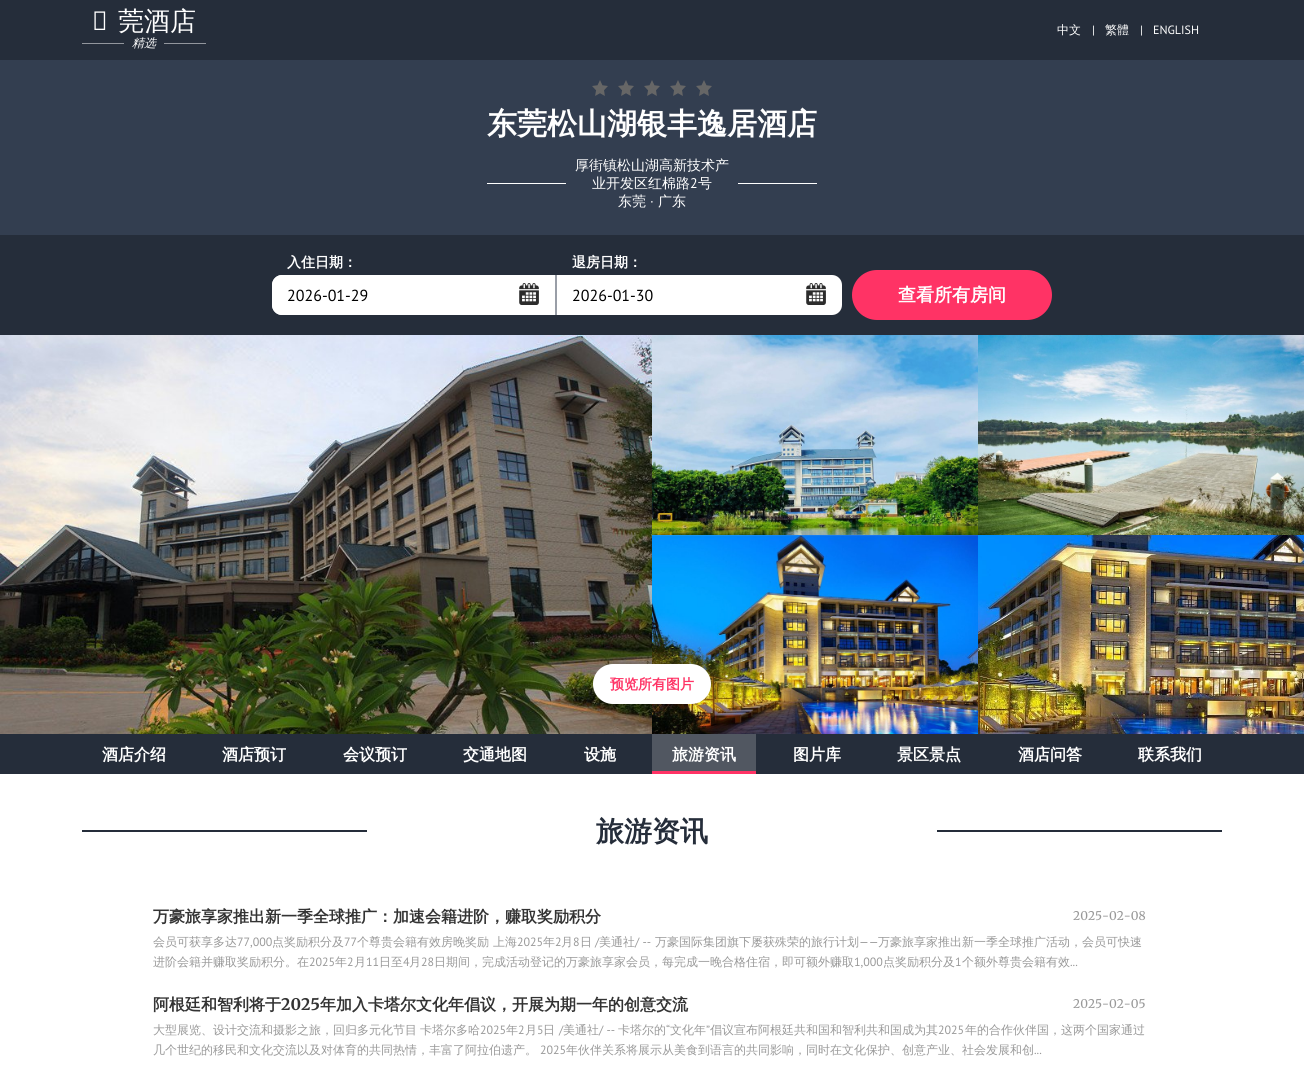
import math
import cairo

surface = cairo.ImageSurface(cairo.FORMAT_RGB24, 1304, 1065)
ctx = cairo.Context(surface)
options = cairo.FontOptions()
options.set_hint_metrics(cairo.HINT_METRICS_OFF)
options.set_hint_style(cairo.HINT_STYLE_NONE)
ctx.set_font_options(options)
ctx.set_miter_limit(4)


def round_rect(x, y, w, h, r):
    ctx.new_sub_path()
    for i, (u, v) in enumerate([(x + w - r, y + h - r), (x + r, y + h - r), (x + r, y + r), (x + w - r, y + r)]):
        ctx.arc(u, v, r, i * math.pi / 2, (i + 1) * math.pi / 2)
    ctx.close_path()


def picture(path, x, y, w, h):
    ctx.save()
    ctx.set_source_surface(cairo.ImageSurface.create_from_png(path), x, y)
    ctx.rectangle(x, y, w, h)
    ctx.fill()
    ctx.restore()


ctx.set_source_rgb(1, 1, 1)
ctx.paint()
ctx.set_source_rgb(0.145, 0.176, 0.227)
ctx.rectangle(0, 0, 1304, 60)
ctx.fill()
ctx.select_font_face("Noto Sans")
ctx.set_font_size(26)
ctx.set_source_rgb(1, 1, 1)
ctx.move_to(92, 30)
ctx.show_text("东")
ctx.select_font_face("WenQuanYi Zen Hei Medium")
ctx.move_to(118, 30)
ctx.show_text("莞酒店")
ctx.set_source_rgb(0.573, 0.588, 0.616)
ctx.rectangle(82, 43, 42, 1)
ctx.fill()
ctx.select_font_face("WenQuanYi Zen Hei Medium", cairo.FONT_SLANT_ITALIC)
ctx.set_font_size(12)
ctx.set_source_rgb(1, 1, 1)
ctx.move_to(132, 47)
ctx.show_text("精选")
ctx.set_source_rgb(0.573, 0.588, 0.616)
ctx.rectangle(164, 43, 42, 1)
ctx.fill()
ctx.select_font_face("WenQuanYi Zen Hei Medium")
ctx.set_source_rgb(1, 1, 1)
ctx.move_to(1057, 34)
ctx.show_text("中文")
ctx.select_font_face("PT Sans")
ctx.move_to(1092, 34)
ctx.show_text("|")
ctx.select_font_face("WenQuanYi Zen Hei Medium")
ctx.move_to(1105, 34)
ctx.show_text("繁體")
ctx.select_font_face("PT Sans")
ctx.move_to(1140, 34)
ctx.show_text("|")
ctx.move_to(1153, 34)
ctx.show_text("ENGLISH")
ctx.set_source_rgb(0.2, 0.243, 0.314)
ctx.rectangle(0, 60, 1304, 175)
ctx.fill()
picture("img1.png", 592, 80, 16, 16)
picture("img1.png", 618, 80, 16, 16)
picture("img1.png", 644, 80, 16, 16)
picture("img1.png", 670, 80, 16, 16)
picture("img1.png", 696, 80, 16, 16)
ctx.select_font_face("WenQuanYi Zen Hei", cairo.FONT_SLANT_NORMAL, cairo.FONT_WEIGHT_BOLD)
ctx.set_font_size(30)
ctx.set_source_rgb(1, 1, 1)
ctx.move_to(487, 134)
ctx.show_text("东莞松山湖银丰逸居酒店")
ctx.select_font_face("WenQuanYi Zen Hei Medium")
ctx.set_font_size(14)
ctx.move_to(575, 170)
ctx.show_text("厚街镇松山湖高新技术产")
ctx.rectangle(487, 183, 79, 1)
ctx.fill()
ctx.move_to(592, 188)
ctx.show_text("业开发区红棉路")
ctx.select_font_face("PT Sans")
ctx.move_to(690, 188)
ctx.show_text("2")
ctx.select_font_face("WenQuanYi Zen Hei Medium")
ctx.move_to(698, 188)
ctx.show_text("号")
ctx.rectangle(738, 183, 79, 1)
ctx.fill()
ctx.move_to(618, 206)
ctx.show_text("东莞")
ctx.select_font_face("PT Sans")
ctx.move_to(650, 206)
ctx.show_text("·")
ctx.select_font_face("WenQuanYi Zen Hei Medium")
ctx.move_to(658, 206)
ctx.show_text("广东")
ctx.set_source_rgb(0.145, 0.176, 0.227)
ctx.rectangle(0, 235, 1304, 100)
ctx.fill()
ctx.select_font_face("WenQuanYi Zen Hei", cairo.FONT_SLANT_NORMAL, cairo.FONT_WEIGHT_BOLD)
ctx.set_source_rgb(1, 1, 1)
ctx.move_to(287, 267)
ctx.show_text("入住日期：")
ctx.new_path()
ctx.move_to(282, 275)
ctx.line_to(557, 275)
ctx.line_to(557, 315)
ctx.line_to(282, 315)
ctx.curve_to(276.5, 315, 272, 310.5, 272, 305)
ctx.line_to(272, 285)
ctx.curve_to(272, 279.5, 276.5, 275, 282, 275)
ctx.close_path()
ctx.fill()
ctx.set_source_rgb(0.6, 0.62, 0.655)
ctx.rectangle(555, 275, 2, 40)
ctx.fill()
ctx.set_source_rgb(1, 1, 1)
ctx.new_path()
ctx.move_to(282, 275)
ctx.line_to(432, 275)
ctx.line_to(432, 315)
ctx.line_to(282, 315)
ctx.curve_to(276.5, 315, 272, 310.5, 272, 305)
ctx.line_to(272, 285)
ctx.curve_to(272, 279.5, 276.5, 275, 282, 275)
ctx.close_path()
ctx.fill()
ctx.select_font_face("PT Sans")
ctx.set_font_size(16)
ctx.set_source_rgb(0, 0, 0)
ctx.move_to(287, 301)
ctx.show_text("2026-01-29")
picture("img2.png", 519, 283, 20, 22)
ctx.select_font_face("WenQuanYi Zen Hei", cairo.FONT_SLANT_NORMAL, cairo.FONT_WEIGHT_BOLD)
ctx.set_font_size(14)
ctx.set_source_rgb(1, 1, 1)
ctx.move_to(572, 267)
ctx.show_text("退房日期：")
ctx.new_path()
ctx.move_to(557, 275)
ctx.line_to(832, 275)
ctx.curve_to(837.5, 275, 842, 279.5, 842, 285)
ctx.line_to(842, 305)
ctx.curve_to(842, 310.5, 837.5, 315, 832, 315)
ctx.line_to(557, 315)
ctx.close_path()
ctx.fill()
ctx.select_font_face("PT Sans")
ctx.set_font_size(16)
ctx.set_source_rgb(0, 0, 0)
ctx.move_to(572, 301)
ctx.show_text("2026-01-30")
picture("img2.png", 806, 283, 20, 22)
ctx.set_source_rgb(1, 0.2, 0.396)
round_rect(852, 270, 200, 50, 25)
ctx.fill()
ctx.select_font_face("WenQuanYi Zen Hei", cairo.FONT_SLANT_NORMAL, cairo.FONT_WEIGHT_BOLD)
ctx.set_font_size(18)
ctx.set_source_rgb(1, 1, 1)
ctx.move_to(898, 301)
ctx.show_text("查看所有房间")
picture("img3.png", 0, 335, 652, 399)
picture("img4.png", 652, 335, 326, 200)
picture("img5.png", 978, 335, 326, 200)
picture("img6.png", 652, 535, 326, 199)
picture("img7.png", 978, 535, 326, 199)
round_rect(594, 665, 116, 38, 19)
ctx.fill_preserve()
ctx.stroke()
ctx.set_font_size(14)
ctx.set_source_rgb(1, 0.2, 0.396)
ctx.move_to(610, 689)
ctx.show_text("预览所有图片")
ctx.set_source_rgb(0.145, 0.176, 0.227)
ctx.rectangle(0, 734, 1304, 40)
ctx.fill()
ctx.set_font_size(16)
ctx.set_source_rgb(1, 1, 1)
ctx.move_to(102, 760)
ctx.show_text("酒店介绍")
ctx.move_to(222, 760)
ctx.show_text("酒店预订")
ctx.move_to(343, 760)
ctx.show_text("会议预订")
ctx.move_to(463, 760)
ctx.show_text("交通地图")
ctx.move_to(584, 760)
ctx.show_text("设施")
ctx.set_source_rgb(0.318, 0.341, 0.38)
ctx.rectangle(652, 734, 104, 37)
ctx.fill()
ctx.set_source_rgb(1, 0.2, 0.396)
ctx.rectangle(652, 771, 104, 3)
ctx.fill()
ctx.set_source_rgb(1, 1, 1)
ctx.move_to(672, 760)
ctx.show_text("旅游资讯")
ctx.move_to(793, 760)
ctx.show_text("图片库")
ctx.move_to(897, 760)
ctx.show_text("景区景点")
ctx.move_to(1018, 760)
ctx.show_text("酒店问答")
ctx.move_to(1138, 760)
ctx.show_text("联系我们")
ctx.set_source_rgb(0.145, 0.176, 0.227)
ctx.rectangle(82, 830, 285, 2)
ctx.fill()
ctx.set_font_size(28)
ctx.move_to(596, 841)
ctx.show_text("旅游资讯")
ctx.rectangle(937, 830, 285, 2)
ctx.fill()
ctx.set_font_size(16)
ctx.set_source_rgb(0.2, 0.2, 0.2)
ctx.move_to(153, 922)
ctx.show_text("万豪旅享家推出新一季全球推广：加速会籍进阶，赚取奖励积分")
ctx.select_font_face("Merriweather")
ctx.set_font_size(12)
ctx.set_source_rgb(0.6, 0.6, 0.6)
ctx.move_to(1073, 920)
ctx.show_text("2025-02-08")
ctx.select_font_face("WenQuanYi Zen Hei Medium")
ctx.move_to(153, 946)
ctx.show_text("会员可获享多达")
ctx.select_font_face("PT Sans")
ctx.move_to(237, 946)
ctx.show_text("77,000")
ctx.select_font_face("WenQuanYi Zen Hei Medium")
ctx.move_to(272, 946)
ctx.show_text("点奖励积分及")
ctx.select_font_face("PT Sans")
ctx.move_to(344, 946)
ctx.show_text("77")
ctx.select_font_face("WenQuanYi Zen Hei Medium")
ctx.move_to(357, 946)
ctx.show_text("个尊贵会籍有效房晚奖励")
ctx.move_to(493, 946)
ctx.show_text("上海")
ctx.select_font_face("PT Sans")
ctx.move_to(517, 946)
ctx.show_text("2025")
ctx.select_font_face("WenQuanYi Zen Hei Medium")
ctx.move_to(543, 946)
ctx.show_text("年")
ctx.select_font_face("PT Sans")
ctx.move_to(555, 946)
ctx.show_text("2")
ctx.select_font_face("WenQuanYi Zen Hei Medium")
ctx.move_to(561, 946)
ctx.show_text("月")
ctx.select_font_face("PT Sans")
ctx.move_to(573, 946)
ctx.show_text("8")
ctx.select_font_face("WenQuanYi Zen Hei Medium")
ctx.move_to(580, 946)
ctx.show_text("日")
ctx.select_font_face("PT Sans")
ctx.move_to(595, 946)
ctx.show_text("/")
ctx.select_font_face("WenQuanYi Zen Hei Medium")
ctx.move_to(599, 946)
ctx.show_text("美通社")
ctx.select_font_face("PT Sans")
ctx.move_to(635, 946)
ctx.show_text("/ --")
ctx.select_font_face("WenQuanYi Zen Hei Medium")
ctx.move_to(655, 946)
ctx.show_text("万豪国际集团旗下屡获殊荣的旅行计划")
ctx.select_font_face("PT Sans")
ctx.move_to(859, 946)
ctx.show_text("——")
ctx.select_font_face("WenQuanYi Zen Hei Medium")
ctx.move_to(878, 946)
ctx.show_text("万豪旅享家推出新一季全球推广活动，会员可快速")
ctx.move_to(153, 966)
ctx.show_text("进阶会籍并赚取奖励积分。在")
ctx.select_font_face("PT Sans")
ctx.move_to(309, 966)
ctx.show_text("2025")
ctx.select_font_face("WenQuanYi Zen Hei Medium")
ctx.move_to(335, 966)
ctx.show_text("年")
ctx.select_font_face("PT Sans")
ctx.move_to(347, 966)
ctx.show_text("2")
ctx.select_font_face("WenQuanYi Zen Hei Medium")
ctx.move_to(354, 966)
ctx.show_text("月")
ctx.select_font_face("PT Sans")
ctx.move_to(366, 966)
ctx.show_text("11")
ctx.select_font_face("WenQuanYi Zen Hei Medium")
ctx.move_to(379, 966)
ctx.show_text("日至")
ctx.select_font_face("PT Sans")
ctx.move_to(403, 966)
ctx.show_text("4")
ctx.select_font_face("WenQuanYi Zen Hei Medium")
ctx.move_to(409, 966)
ctx.show_text("月")
ctx.select_font_face("PT Sans")
ctx.move_to(421, 966)
ctx.show_text("28")
ctx.select_font_face("WenQuanYi Zen Hei Medium")
ctx.move_to(434, 966)
ctx.show_text("日期间，完成活动登记的万豪旅享家会员，每完成一晚合格住宿，即可额外赚取")
ctx.select_font_face("PT Sans")
ctx.move_to(854, 966)
ctx.show_text("1,000")
ctx.select_font_face("WenQuanYi Zen Hei Medium")
ctx.move_to(883, 966)
ctx.show_text("点奖励积分及")
ctx.select_font_face("PT Sans")
ctx.move_to(955, 966)
ctx.show_text("1")
ctx.select_font_face("WenQuanYi Zen Hei Medium")
ctx.move_to(962, 966)
ctx.show_text("个额外尊贵会籍有效")
ctx.select_font_face("PT Sans")
ctx.move_to(1070, 966)
ctx.show_text("...")
ctx.select_font_face("WenQuanYi Zen Hei", cairo.FONT_SLANT_NORMAL, cairo.FONT_WEIGHT_BOLD)
ctx.set_font_size(16)
ctx.set_source_rgb(0.2, 0.2, 0.2)
ctx.move_to(153, 1010)
ctx.show_text("阿根廷和智利将于")
ctx.select_font_face("Merriweather", cairo.FONT_SLANT_NORMAL, cairo.FONT_WEIGHT_BOLD)
ctx.move_to(281, 1010)
ctx.show_text("2025")
ctx.select_font_face("WenQuanYi Zen Hei", cairo.FONT_SLANT_NORMAL, cairo.FONT_WEIGHT_BOLD)
ctx.move_to(320, 1010)
ctx.show_text("年加入卡塔尔文化年倡议，开展为期一年的创意交流")
ctx.select_font_face("Merriweather")
ctx.set_font_size(12)
ctx.set_source_rgb(0.6, 0.6, 0.6)
ctx.move_to(1073, 1008)
ctx.show_text("2025-02-05")
ctx.select_font_face("WenQuanYi Zen Hei Medium")
ctx.move_to(153, 1034)
ctx.show_text("大型展览、设计交流和摄影之旅，回归多元化节目")
ctx.move_to(420, 1034)
ctx.show_text("卡塔尔多哈")
ctx.select_font_face("PT Sans")
ctx.move_to(480, 1034)
ctx.show_text("2025")
ctx.select_font_face("WenQuanYi Zen Hei Medium")
ctx.move_to(506, 1034)
ctx.show_text("年")
ctx.select_font_face("PT Sans")
ctx.move_to(518, 1034)
ctx.show_text("2")
ctx.select_font_face("WenQuanYi Zen Hei Medium")
ctx.move_to(525, 1034)
ctx.show_text("月")
ctx.select_font_face("PT Sans")
ctx.move_to(537, 1034)
ctx.show_text("5")
ctx.select_font_face("WenQuanYi Zen Hei Medium")
ctx.move_to(543, 1034)
ctx.show_text("日")
ctx.select_font_face("PT Sans")
ctx.move_to(559, 1034)
ctx.show_text("/")
ctx.select_font_face("WenQuanYi Zen Hei Medium")
ctx.move_to(563, 1034)
ctx.show_text("美通社")
ctx.select_font_face("PT Sans")
ctx.move_to(599, 1034)
ctx.show_text("/ --")
ctx.select_font_face("WenQuanYi Zen Hei Medium")
ctx.move_to(618, 1034)
ctx.show_text("卡塔尔的")
ctx.select_font_face("PT Sans")
ctx.move_to(666, 1034)
ctx.show_text("“")
ctx.select_font_face("WenQuanYi Zen Hei Medium")
ctx.move_to(670, 1034)
ctx.show_text("文化年")
ctx.select_font_face("PT Sans")
ctx.move_to(706, 1034)
ctx.show_text("”")
ctx.select_font_face("WenQuanYi Zen Hei Medium")
ctx.move_to(710, 1034)
ctx.show_text("倡议宣布阿根廷共和国和智利共和国成为其")
ctx.select_font_face("PT Sans")
ctx.move_to(938, 1034)
ctx.show_text("2025")
ctx.select_font_face("WenQuanYi Zen Hei Medium")
ctx.move_to(965, 1034)
ctx.show_text("年的合作伙伴国，这两个国家通过")
ctx.move_to(153, 1054)
ctx.show_text("几个世纪的移民和文化交流以及对体育的共同热情，丰富了阿拉伯遗产。")
ctx.select_font_face("PT Sans")
ctx.move_to(540, 1054)
ctx.show_text("2025")
ctx.select_font_face("WenQuanYi Zen Hei Medium")
ctx.move_to(566, 1054)
ctx.show_text("年伙伴关系将展示从美食到语言的共同影响，同时在文化保护、创意产业、社会发展和创")
ctx.select_font_face("PT Sans")
ctx.move_to(1034, 1054)
ctx.show_text("...")
surface.write_to_png("page.png")
